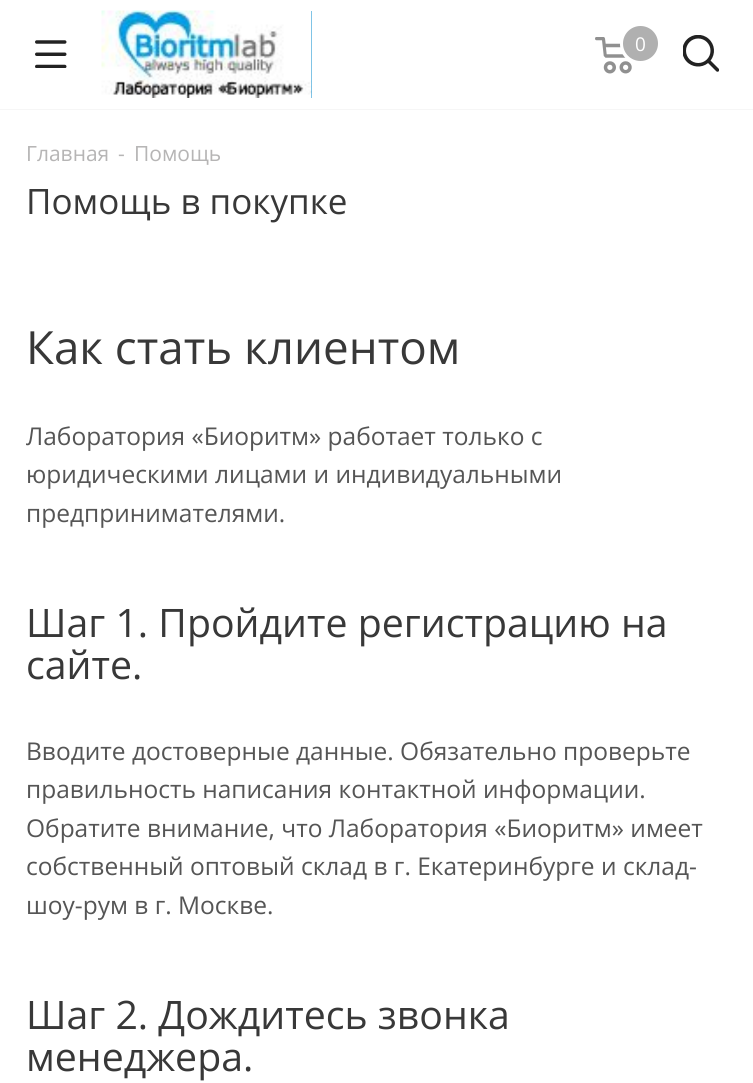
import math
import cairo

surface = cairo.ImageSurface(cairo.FORMAT_RGB24, 753, 1083)
ctx = cairo.Context(surface)
options = cairo.FontOptions()
options.set_hint_metrics(cairo.HINT_METRICS_OFF)
options.set_hint_style(cairo.HINT_STYLE_NONE)
ctx.set_font_options(options)
ctx.set_miter_limit(4)


def picture(path, x, y, w, h):
    ctx.save()
    ctx.set_source_surface(cairo.ImageSurface.create_from_png(path), x, y)
    ctx.rectangle(x, y, w, h)
    ctx.fill()
    ctx.restore()


ctx.set_source_rgb(1, 1, 1)
ctx.paint()
ctx.set_source_rgb(0.961, 0.961, 0.961)
ctx.rectangle(0, 109, 753, 1)
ctx.fill()
picture("img1.png", 35, 40, 32, 28)
ctx.set_source_rgb(0, 0.533, 0.8)
ctx.rectangle(311, 11, 1, 87)
ctx.fill()
picture("img2.png", 101, 10, 211, 88)
picture("img3.png", 595, 37, 37, 37)
ctx.arc(641, 44, 19, 0, 2 * math.pi)
ctx.set_source_rgb(1, 1, 1)
ctx.set_line_width(4)
ctx.stroke()
ctx.set_source_rgb(0.69, 0.69, 0.69)
ctx.arc(640.5, 43.5, 17.5, 0, 2 * math.pi)
ctx.fill()
ctx.select_font_face("Open Sans")
ctx.set_font_size(19)
ctx.set_source_rgb(1, 1, 1)
ctx.move_to(635, 51)
ctx.show_text("0")
picture("img4.png", 683, 35, 36, 37)
ctx.set_font_size(21)
ctx.set_source_rgb(0.714, 0.71, 0.71)
ctx.move_to(26, 161)
ctx.show_text("Главная")
ctx.move_to(118, 161)
ctx.show_text("-")
ctx.move_to(134, 161)
ctx.show_text("Помощь")
ctx.set_font_size(35)
ctx.set_source_rgb(0.22, 0.22, 0.22)
ctx.move_to(26, 214)
ctx.show_text("Помощь в покупке")
ctx.set_font_size(45.75)
ctx.move_to(26, 364)
ctx.show_text("Как стать клиентом")
ctx.set_font_size(24.5)
ctx.set_source_rgb(0.333, 0.333, 0.333)
ctx.move_to(26, 445)
ctx.show_text("Лаборатория «Биоритм» работает только с")
ctx.move_to(26, 483)
ctx.show_text("юридическими лицами и индивидуальными")
ctx.move_to(26, 522)
ctx.show_text("предпринимателями.")
ctx.set_font_size(39.25)
ctx.set_source_rgb(0.22, 0.22, 0.22)
ctx.move_to(26, 637)
ctx.show_text("Шаг 1. Пройдите регистрацию на")
ctx.move_to(26, 679)
ctx.show_text("сайте.")
ctx.set_font_size(24.5)
ctx.set_source_rgb(0.333, 0.333, 0.333)
ctx.move_to(26, 760)
ctx.show_text("Вводите достоверные данные. Обязательно проверьте")
ctx.move_to(26, 798)
ctx.show_text("правильность написания контактной информации.")
ctx.move_to(26, 837)
ctx.show_text("Обратите внимание, что Лаборатория «Биоритм» имеет")
ctx.move_to(26, 875)
ctx.show_text("собственный оптовый склад в г. Екатеринбурге и склад-")
ctx.move_to(26, 914)
ctx.show_text("шоу-рум в г. Москве.")
ctx.set_font_size(39.25)
ctx.set_source_rgb(0.22, 0.22, 0.22)
ctx.move_to(26, 1029)
ctx.show_text("Шаг 2. Дождитесь звонка")
ctx.move_to(26, 1071)
ctx.show_text("менеджера.")
surface.write_to_png("page.png")
